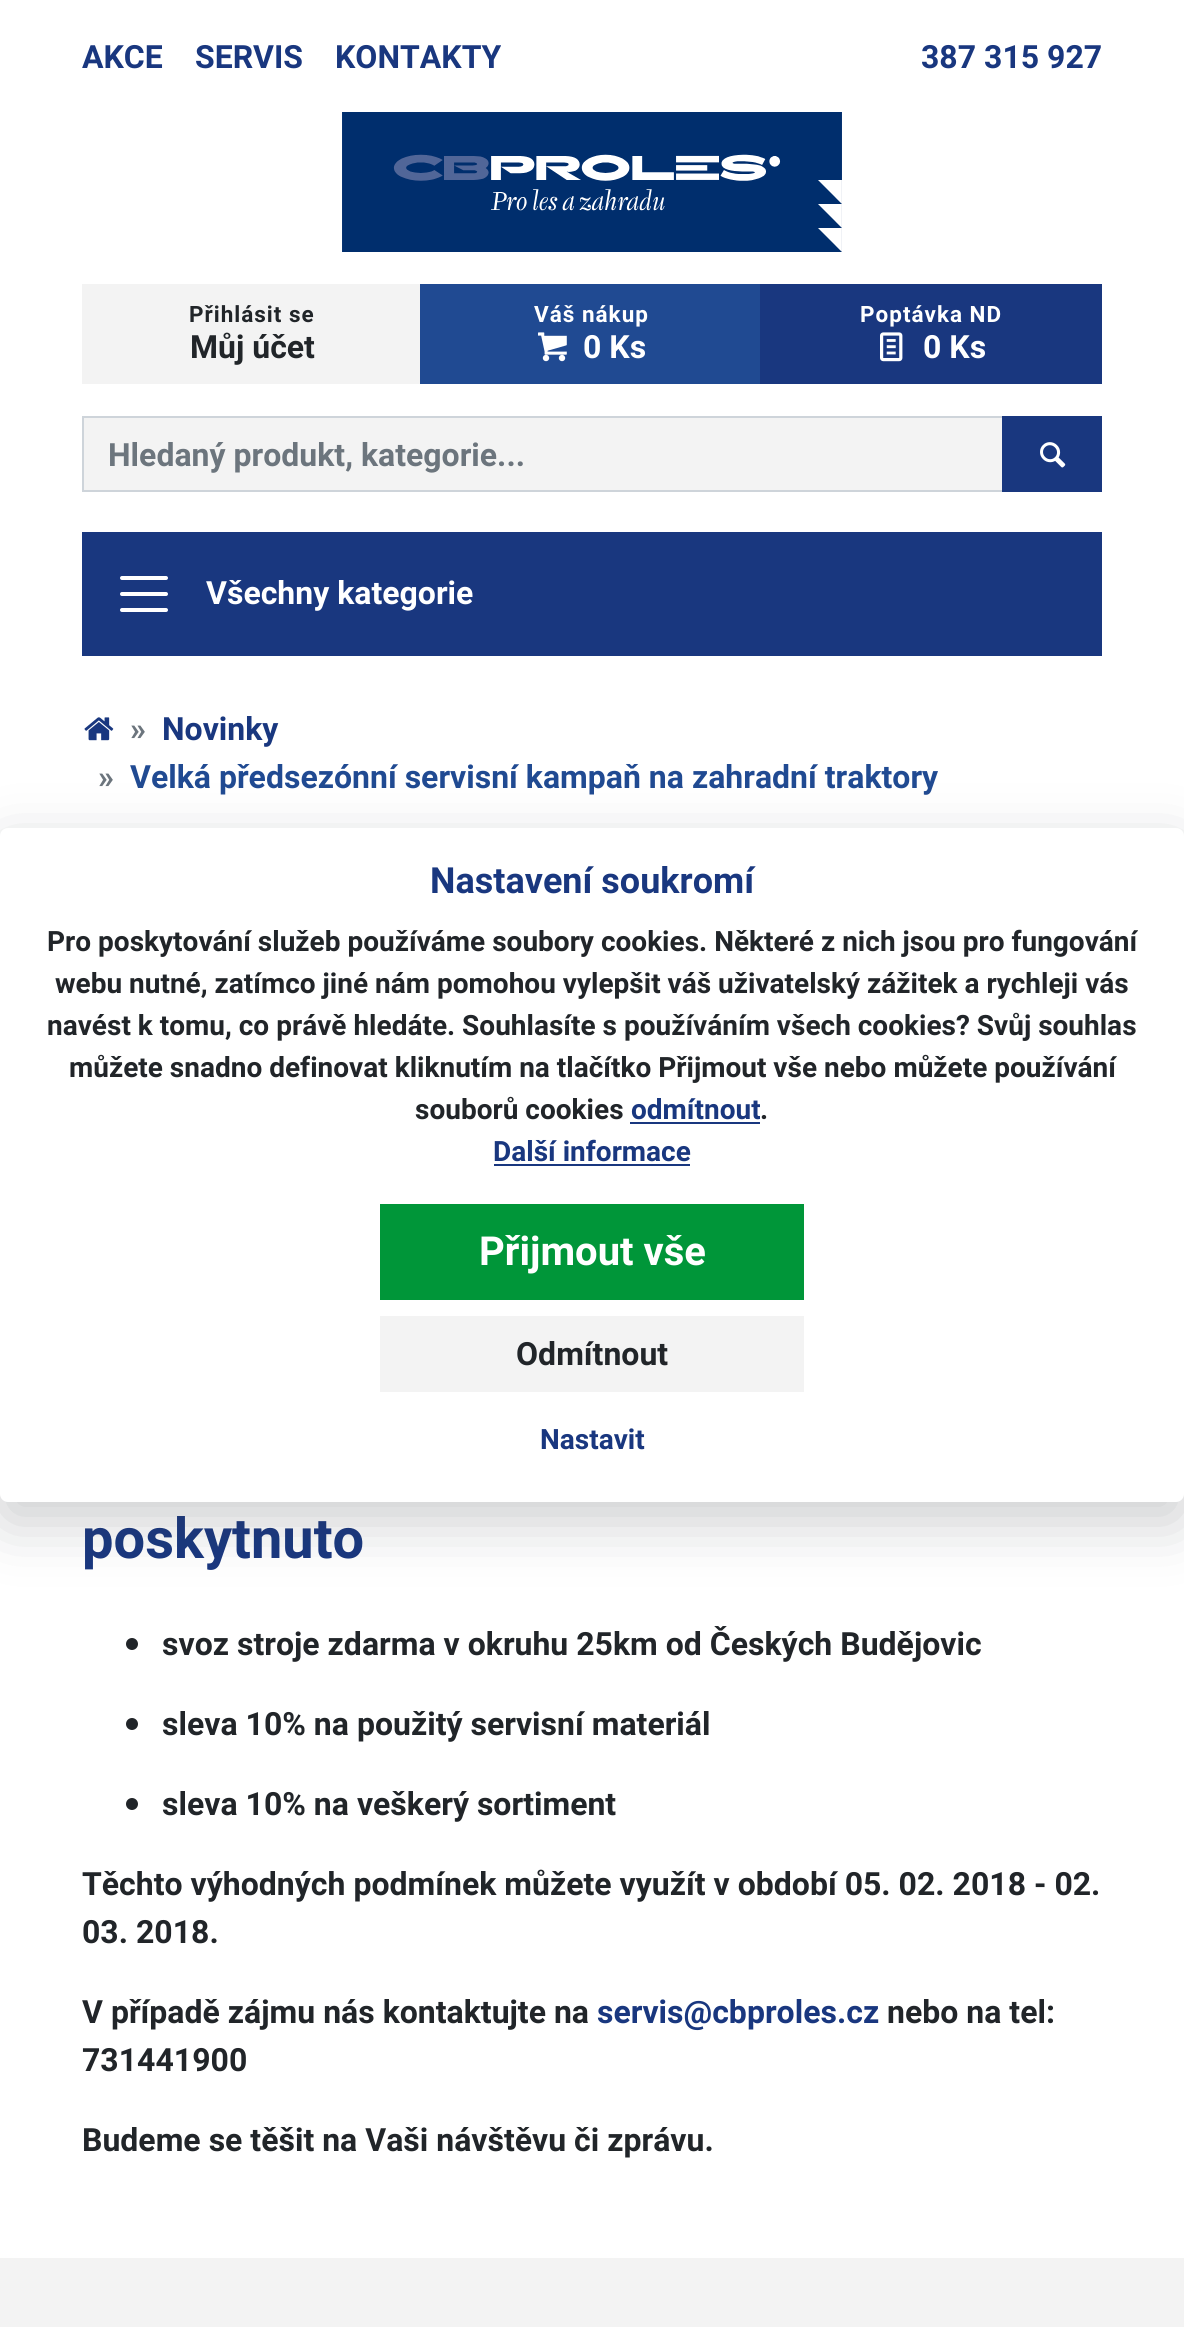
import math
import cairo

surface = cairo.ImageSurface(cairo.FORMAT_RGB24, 1184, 2327)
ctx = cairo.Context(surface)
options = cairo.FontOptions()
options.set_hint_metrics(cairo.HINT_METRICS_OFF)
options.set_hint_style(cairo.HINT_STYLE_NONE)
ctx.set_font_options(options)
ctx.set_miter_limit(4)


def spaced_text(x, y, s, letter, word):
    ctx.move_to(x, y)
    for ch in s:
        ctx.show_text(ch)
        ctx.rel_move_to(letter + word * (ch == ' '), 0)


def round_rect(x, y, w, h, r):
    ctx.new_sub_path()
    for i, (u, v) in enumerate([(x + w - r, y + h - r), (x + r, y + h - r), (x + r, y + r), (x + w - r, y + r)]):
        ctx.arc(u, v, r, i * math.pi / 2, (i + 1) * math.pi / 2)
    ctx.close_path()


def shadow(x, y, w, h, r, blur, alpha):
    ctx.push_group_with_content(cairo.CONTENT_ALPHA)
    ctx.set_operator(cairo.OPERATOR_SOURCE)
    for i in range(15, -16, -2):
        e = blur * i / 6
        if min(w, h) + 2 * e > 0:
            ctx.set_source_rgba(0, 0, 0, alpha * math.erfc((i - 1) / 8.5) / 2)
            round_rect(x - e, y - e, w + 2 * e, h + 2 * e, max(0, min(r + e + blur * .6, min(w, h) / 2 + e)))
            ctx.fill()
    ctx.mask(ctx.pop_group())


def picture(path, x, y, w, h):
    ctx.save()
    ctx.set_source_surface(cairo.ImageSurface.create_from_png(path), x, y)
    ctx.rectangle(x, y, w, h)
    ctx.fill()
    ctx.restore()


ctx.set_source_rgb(1, 1, 1)
ctx.paint()
ctx.select_font_face("Roboto", cairo.FONT_SLANT_NORMAL, cairo.FONT_WEIGHT_BOLD)
ctx.set_font_size(32)
ctx.set_source_rgb(0.098, 0.216, 0.498)
ctx.move_to(82, 68)
ctx.show_text("AKCE")
ctx.move_to(195, 68)
ctx.show_text("SERVIS")
ctx.move_to(335, 68)
ctx.show_text("KONTAKTY")
ctx.move_to(921, 68)
ctx.show_text("387 315 927")
picture("img1.png", 342, 112, 500, 140)
ctx.set_source_rgb(0.953, 0.953, 0.953)
ctx.rectangle(82, 284, 338, 100)
ctx.fill()
ctx.set_font_size(22.5)
ctx.set_source_rgb(0.129, 0.145, 0.161)
spaced_text(189, 322, "Přihlásit se", 1, 0)
ctx.set_font_size(32)
ctx.move_to(190, 358)
ctx.show_text("Můj účet")
ctx.set_source_rgb(0.125, 0.29, 0.573)
ctx.rectangle(420, 284, 340, 100)
ctx.fill()
ctx.set_font_size(22.5)
ctx.set_source_rgb(1, 1, 1)
spaced_text(534, 322, "Váš nákup", 1, 0)
picture("img2.png", 538, 332, 29, 30)
ctx.set_font_size(32)
ctx.move_to(583, 358)
ctx.show_text("0 Ks")
ctx.set_source_rgb(0.098, 0.216, 0.498)
ctx.rectangle(760, 284, 342, 100)
ctx.fill()
ctx.set_font_size(22.5)
ctx.set_source_rgb(1, 1, 1)
spaced_text(860, 322, "Poptávka ND", 1, 0)
picture("img3.png", 880, 332, 23, 30)
ctx.set_font_size(32)
ctx.move_to(923, 358)
ctx.show_text("0 Ks")
ctx.set_source_rgb(0.953, 0.953, 0.953)
ctx.rectangle(83, 417, 920, 74)
ctx.fill_preserve()
ctx.set_source_rgb(0.808, 0.831, 0.855)
ctx.stroke()
ctx.set_source_rgb(0.424, 0.459, 0.49)
ctx.move_to(108, 466)
ctx.show_text("Hledaný produkt, kategorie...")
ctx.set_source_rgb(0.098, 0.216, 0.498)
ctx.rectangle(1002, 416, 100, 76)
ctx.fill()
picture("img4.png", 1040, 442, 26, 26)
ctx.rectangle(82, 532, 1020, 124)
ctx.fill()
ctx.new_path()
ctx.move_to(122, 578)
ctx.line_to(166, 578)
ctx.move_to(122, 594)
ctx.line_to(166, 594)
ctx.move_to(122, 610)
ctx.line_to(166, 610)
ctx.set_source_rgb(1, 1, 1)
ctx.set_line_width(4)
ctx.set_line_cap(cairo.LINE_CAP_ROUND)
ctx.stroke()
ctx.move_to(206, 604)
ctx.show_text("Všechny kategorie")
picture("img5.png", 84, 717, 30, 24)
ctx.set_source_rgb(0.424, 0.459, 0.49)
ctx.move_to(130, 740)
ctx.show_text("»")
ctx.set_source_rgb(0.098, 0.216, 0.498)
ctx.move_to(162, 740)
ctx.show_text("Novinky")
ctx.set_source_rgb(0.424, 0.459, 0.49)
ctx.move_to(98, 788)
ctx.show_text("»")
ctx.set_source_rgb(0.125, 0.29, 0.573)
ctx.move_to(130, 788)
ctx.show_text("Velká předsezónní servisní kampaň na zahradní traktory")
ctx.set_font_size(56)
ctx.set_source_rgb(0.098, 0.216, 0.498)
ctx.move_to(82, 1558)
ctx.show_text("poskytnuto")
ctx.set_source_rgb(0.129, 0.145, 0.161)
ctx.new_path()
ctx.arc(132, 1644, 6, 0, 2 * math.pi)
ctx.fill()
ctx.set_font_size(32)
ctx.move_to(162, 1655)
ctx.show_text("svoz stroje zdarma v okruhu 25km od Českých Budějovic")
ctx.new_path()
ctx.arc(132, 1724, 6, 0, 2 * math.pi)
ctx.fill()
ctx.move_to(162, 1735)
ctx.show_text("sleva 10% na použitý servisní materiál")
ctx.new_path()
ctx.arc(132, 1804, 6, 0, 2 * math.pi)
ctx.fill()
ctx.move_to(162, 1815)
ctx.show_text("sleva 10% na veškerý sortiment")
ctx.move_to(82, 1895)
ctx.show_text("Těchto výhodných podmínek můžete využít v období 05. 02. 2018 - 02.")
ctx.move_to(82, 1943)
ctx.show_text("03. 2018.")
ctx.move_to(82, 2023)
ctx.show_text("V případě zájmu nás kontaktujte na")
ctx.set_source_rgb(0.098, 0.216, 0.498)
ctx.move_to(597, 2023)
ctx.show_text("servis@cbproles.cz")
ctx.set_source_rgb(0.129, 0.145, 0.161)
ctx.move_to(887, 2023)
ctx.show_text("nebo na tel:")
ctx.move_to(82, 2071)
ctx.show_text("731441900")
ctx.move_to(82, 2151)
ctx.show_text("Budeme se těšit na Vaši návštěvu či zprávu.")
ctx.set_source_rgb(0.204, 0.227, 0.251)
shadow(0, 848, 1184, 674, 8, 30, 0.25)
ctx.set_source_rgb(1, 1, 1)
round_rect(0, 828, 1184, 674, 8)
ctx.fill()
ctx.set_font_size(36)
ctx.set_source_rgb(0.098, 0.216, 0.498)
ctx.move_to(430, 893)
ctx.show_text("Nastavení soukromí")
ctx.set_font_size(28)
ctx.set_source_rgb(0.129, 0.145, 0.161)
ctx.move_to(47, 951)
ctx.show_text("Pro poskytování služeb používáme soubory cookies. Některé z nich jsou pro fungování")
ctx.move_to(55, 993)
ctx.show_text("webu nutné, zatímco jiné nám pomohou vylepšit váš uživatelský zážitek a rychleji vás")
ctx.move_to(47, 1035)
ctx.show_text("navést k tomu, co právě hledáte. Souhlasíte s používáním všech cookies? Svůj souhlas")
ctx.move_to(69, 1077)
ctx.show_text("můžete snadno definovat kliknutím na tlačítko Přijmout vše nebo můžete používání")
ctx.move_to(415, 1119)
ctx.show_text("souborů cookies")
ctx.set_source_rgb(0.098, 0.216, 0.498)
ctx.move_to(631, 1119)
ctx.show_text("odmítnout")
ctx.rectangle(630, 1122, 130, 2)
ctx.fill()
ctx.set_source_rgb(0.129, 0.145, 0.161)
ctx.move_to(760, 1119)
ctx.show_text(".")
ctx.set_source_rgb(0.098, 0.216, 0.498)
ctx.move_to(493, 1161)
ctx.show_text("Další informace")
ctx.rectangle(494, 1164, 196, 2)
ctx.fill()
ctx.set_source_rgb(0, 0.588, 0.224)
ctx.rectangle(380, 1204, 424, 96)
ctx.fill()
ctx.set_font_size(40)
ctx.set_source_rgb(1, 1, 1)
ctx.move_to(479, 1265)
ctx.show_text("Přijmout vše")
ctx.set_source_rgb(0.953, 0.953, 0.953)
ctx.rectangle(380, 1316, 424, 76)
ctx.fill()
ctx.set_font_size(32)
ctx.set_source_rgb(0.129, 0.145, 0.161)
ctx.move_to(516, 1365)
ctx.show_text("Odmítnout")
ctx.set_font_size(28)
ctx.set_source_rgb(0.098, 0.216, 0.498)
ctx.move_to(540, 1449)
ctx.show_text("Nastavit")
ctx.set_source_rgb(0.953, 0.953, 0.953)
ctx.rectangle(0, 2258, 1184, 69)
ctx.fill()
surface.write_to_png("page.png")
